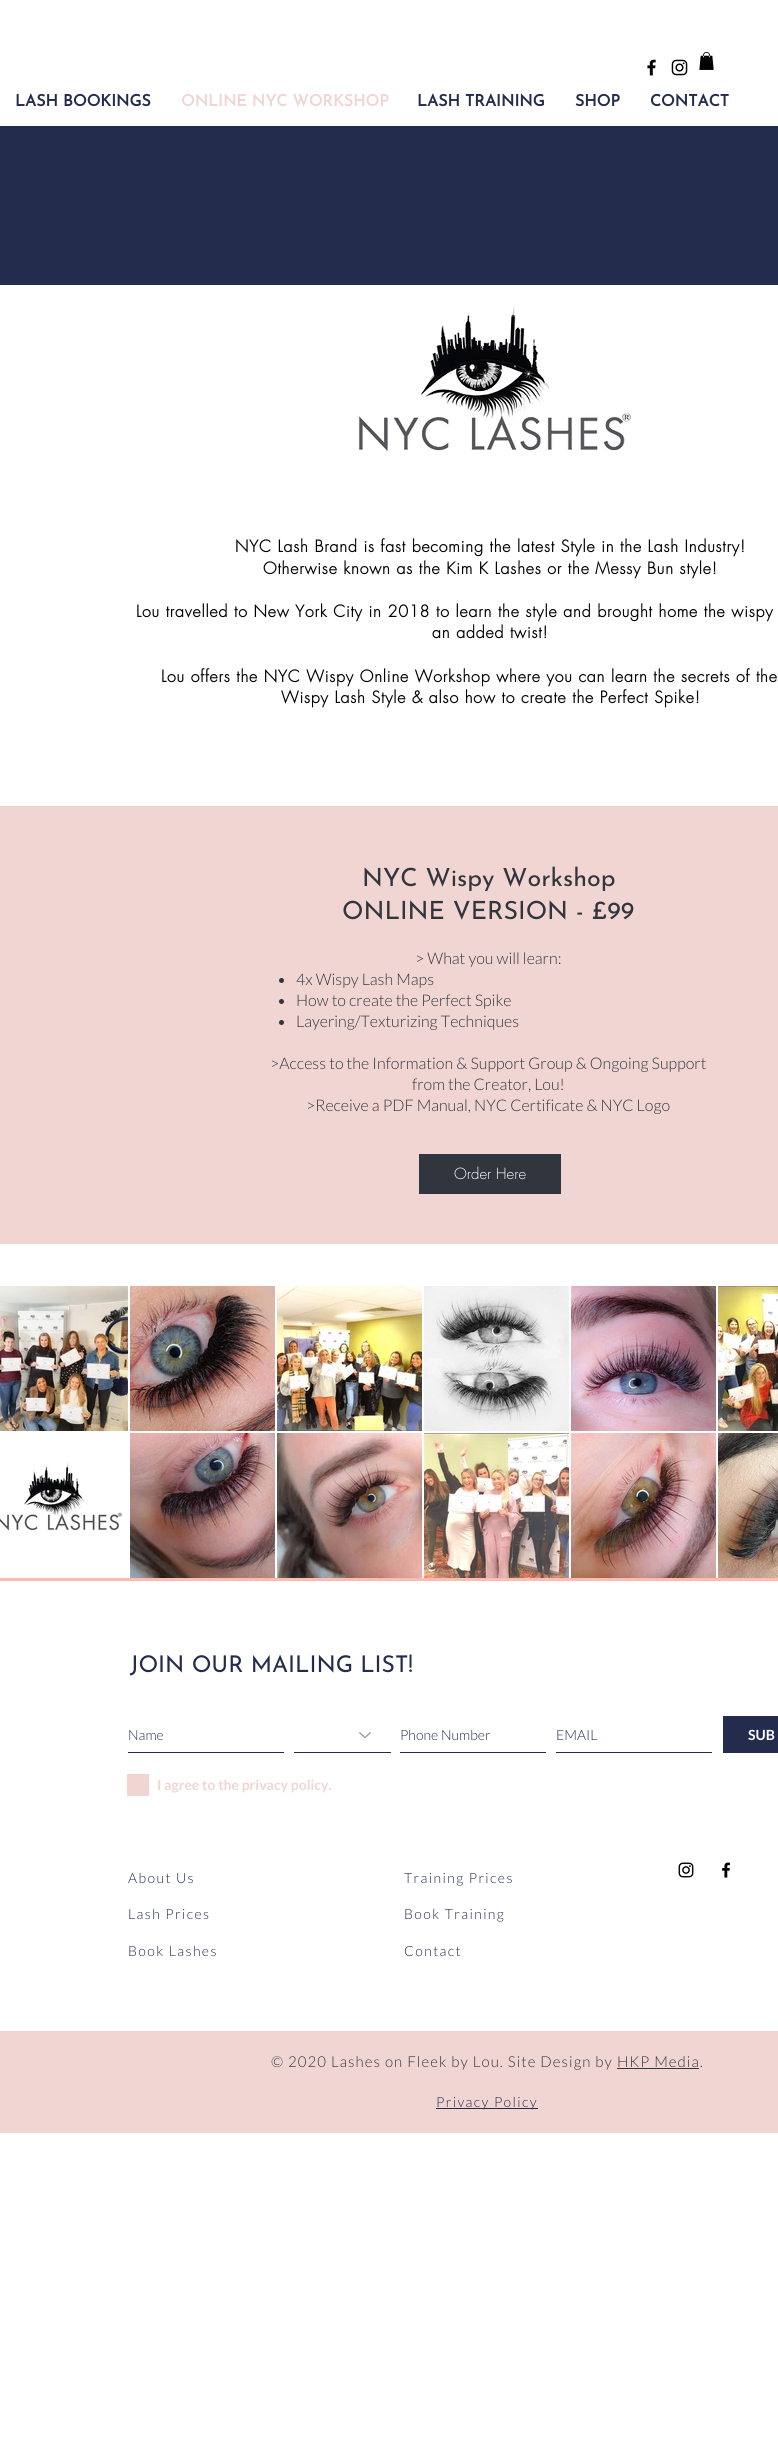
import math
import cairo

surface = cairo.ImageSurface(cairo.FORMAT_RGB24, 778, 2441)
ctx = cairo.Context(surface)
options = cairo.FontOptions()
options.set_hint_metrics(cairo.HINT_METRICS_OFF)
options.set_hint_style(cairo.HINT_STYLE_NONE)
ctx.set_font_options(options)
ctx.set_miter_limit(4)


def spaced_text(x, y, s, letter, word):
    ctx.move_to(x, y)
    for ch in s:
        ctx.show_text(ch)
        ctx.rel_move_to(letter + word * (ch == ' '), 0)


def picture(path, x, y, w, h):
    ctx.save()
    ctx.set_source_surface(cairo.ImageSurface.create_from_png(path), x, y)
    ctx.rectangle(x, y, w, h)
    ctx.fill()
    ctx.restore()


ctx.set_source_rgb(1, 1, 1)
ctx.paint()
picture("img1.png", 647, 59, 9, 17)
picture("img2.png", 671, 59, 17, 17)
picture("img3.png", 699, 52, 15, 18)
ctx.select_font_face("Josefin Sans", cairo.FONT_SLANT_NORMAL, cairo.FONT_WEIGHT_BOLD)
ctx.set_font_size(16)
ctx.set_source_rgb(0.137, 0.173, 0.302)
ctx.move_to(15, 106)
ctx.show_text("LASH BOOKINGS")
ctx.set_source_rgb(0.941, 0.835, 0.827)
ctx.move_to(181, 106)
ctx.show_text("ONLINE NYC WORKSHOP")
ctx.set_source_rgb(0.137, 0.173, 0.302)
ctx.move_to(417, 106)
ctx.show_text("LASH TRAINING")
ctx.move_to(575, 106)
ctx.show_text("SHOP")
ctx.move_to(650, 106)
ctx.show_text("CONTACT")
ctx.rectangle(0, 126, 778, 159)
ctx.fill()
picture("img4.png", 358, 305, 273, 146)
ctx.select_font_face("futura", cairo.FONT_SLANT_NORMAL, cairo.FONT_WEIGHT_BOLD)
ctx.set_source_rgb(0, 0, 0)
spaced_text(235, 552, "NYC Lash Brand is fast becoming the latest Style in the Lash Industry!", 0.8, 0)
spaced_text(263, 574, "Otherwise known as the Kim K Lashes or the Messy Bun style!", 0.8, 0)
spaced_text(136, 617, "Lou travelled to New York City in 2018 to learn the style and brought home the wispy", 0.8, 0)
spaced_text(432, 638, "an added twist!", 0.8, 0)
spaced_text(161, 682, "Lou offers the NYC Wispy Online Workshop where you can learn the secrets of the", 0.8, 0)
spaced_text(281, 703, "Wispy Lash Style & also how to create the Perfect Spike!", 0.8, 0)
ctx.set_source_rgb(0.941, 0.835, 0.827)
ctx.rectangle(0, 806, 778, 438)
ctx.fill()
ctx.select_font_face("Josefin Sans")
ctx.set_font_size(25)
ctx.set_source_rgb(0.192, 0.208, 0.239)
ctx.move_to(362, 886)
ctx.show_text("NYC Wispy Workshop")
ctx.move_to(342, 919)
ctx.show_text("ONLINE VERSION - £99")
ctx.select_font_face("Lato Light")
ctx.set_font_size(16)
ctx.move_to(415, 964)
ctx.show_text("> What you will learn:")
ctx.new_path()
ctx.arc(281.5, 980.5, 2.5, 0, 2 * math.pi)
ctx.fill()
ctx.move_to(296, 985)
ctx.show_text("4x Wispy Lash Maps")
ctx.new_path()
ctx.arc(281.5, 1001.5, 2.5, 0, 2 * math.pi)
ctx.fill()
ctx.move_to(296, 1006)
ctx.show_text("How to create the Perfect Spike")
ctx.new_path()
ctx.arc(281.5, 1022.5, 2.5, 0, 2 * math.pi)
ctx.fill()
ctx.move_to(296, 1027)
ctx.show_text("Layering/Texturizing Techniques")
ctx.move_to(270, 1069)
ctx.show_text(">Access to the Information & Support Group & Ongoing Support")
ctx.move_to(412, 1090)
ctx.show_text("from the Creator, Lou!")
ctx.move_to(306, 1111)
ctx.show_text(">Receive a PDF Manual, NYC Certificate & NYC Logo")
ctx.rectangle(419, 1154, 142, 40)
ctx.fill()
ctx.select_font_face("futura Light")
ctx.set_font_size(15)
ctx.set_source_rgb(1, 1, 1)
ctx.move_to(454, 1179)
ctx.show_text("Order Here")
picture("img5.png", 0, 1286, 128, 145)
picture("img6.png", 0, 1433, 128, 145)
picture("img7.png", 130, 1286, 145, 145)
picture("img8.png", 130, 1433, 145, 145)
picture("img9.png", 277, 1286, 145, 145)
picture("img10.png", 277, 1433, 145, 145)
picture("img11.png", 424, 1286, 145, 145)
picture("img12.png", 424, 1433, 145, 145)
picture("img13.png", 571, 1286, 145, 145)
picture("img14.png", 571, 1433, 145, 145)
picture("img15.png", 718, 1286, 60, 145)
picture("img16.png", 718, 1433, 60, 145)
ctx.set_source_rgb(0.988, 0.737, 0.698)
ctx.rectangle(0, 1578, 778, 3)
ctx.fill()
ctx.select_font_face("Josefin Sans")
ctx.set_font_size(23)
ctx.set_source_rgb(0.137, 0.173, 0.302)
ctx.move_to(130, 1672)
ctx.show_text("JOIN OUR MAILING LIST!")
ctx.rectangle(128, 1752, 156, 1)
ctx.fill()
ctx.select_font_face("Lato Light")
ctx.set_font_size(14)
ctx.move_to(128, 1740)
ctx.show_text("Name")
picture("img17.png", 359, 1732, 12, 6)
ctx.rectangle(294, 1752, 97, 1)
ctx.fill()
ctx.rectangle(400, 1752, 146, 1)
ctx.fill()
ctx.move_to(400, 1740)
ctx.show_text("Phone Number")
ctx.rectangle(556, 1752, 156, 1)
ctx.fill()
ctx.move_to(556, 1740)
ctx.show_text("EMAIL")
ctx.rectangle(723, 1716, 55, 37)
ctx.fill()
ctx.select_font_face("Lato", cairo.FONT_SLANT_NORMAL, cairo.FONT_WEIGHT_BOLD)
ctx.set_source_rgb(1, 1, 1)
ctx.move_to(748, 1740)
ctx.show_text("SUB")
ctx.set_source_rgb(0.941, 0.835, 0.827)
ctx.rectangle(127, 1774, 22, 22)
ctx.fill()
ctx.move_to(157, 1790)
ctx.show_text("I agree to the privacy policy.")
picture("img18.png", 678, 1862, 16, 16)
picture("img19.png", 722, 1862, 9, 16)
ctx.select_font_face("Lato Light")
ctx.set_source_rgb(0.137, 0.173, 0.302)
spaced_text(128, 1883, "About Us", 1.4, 0)
spaced_text(128, 1919, "Lash Prices", 1.4, 0)
spaced_text(128, 1956, "Book Lashes", 1.4, 0)
spaced_text(404, 1883, "Training Prices", 1.4, 0)
spaced_text(404, 1919, "Book Training", 1.4, 0)
spaced_text(404, 1956, "Contact", 1.4, 0)
ctx.set_source_rgb(0.941, 0.835, 0.827)
ctx.rectangle(0, 2031, 778, 102)
ctx.fill()
ctx.set_font_size(15)
ctx.set_source_rgb(0.192, 0.208, 0.239)
spaced_text(271, 2067, "© 2020 Lashes on Fleek by Lou. Site Design by HKP Media.", 1.05, 0)
ctx.rectangle(617, 2068, 82, 1)
ctx.fill()
ctx.set_source_rgb(0.137, 0.173, 0.302)
ctx.rectangle(436, 2108, 102, 1)
ctx.fill()
ctx.set_font_size(14)
spaced_text(436, 2107, "Privacy Policy", 1.4, 0)
surface.write_to_png("page.png")
